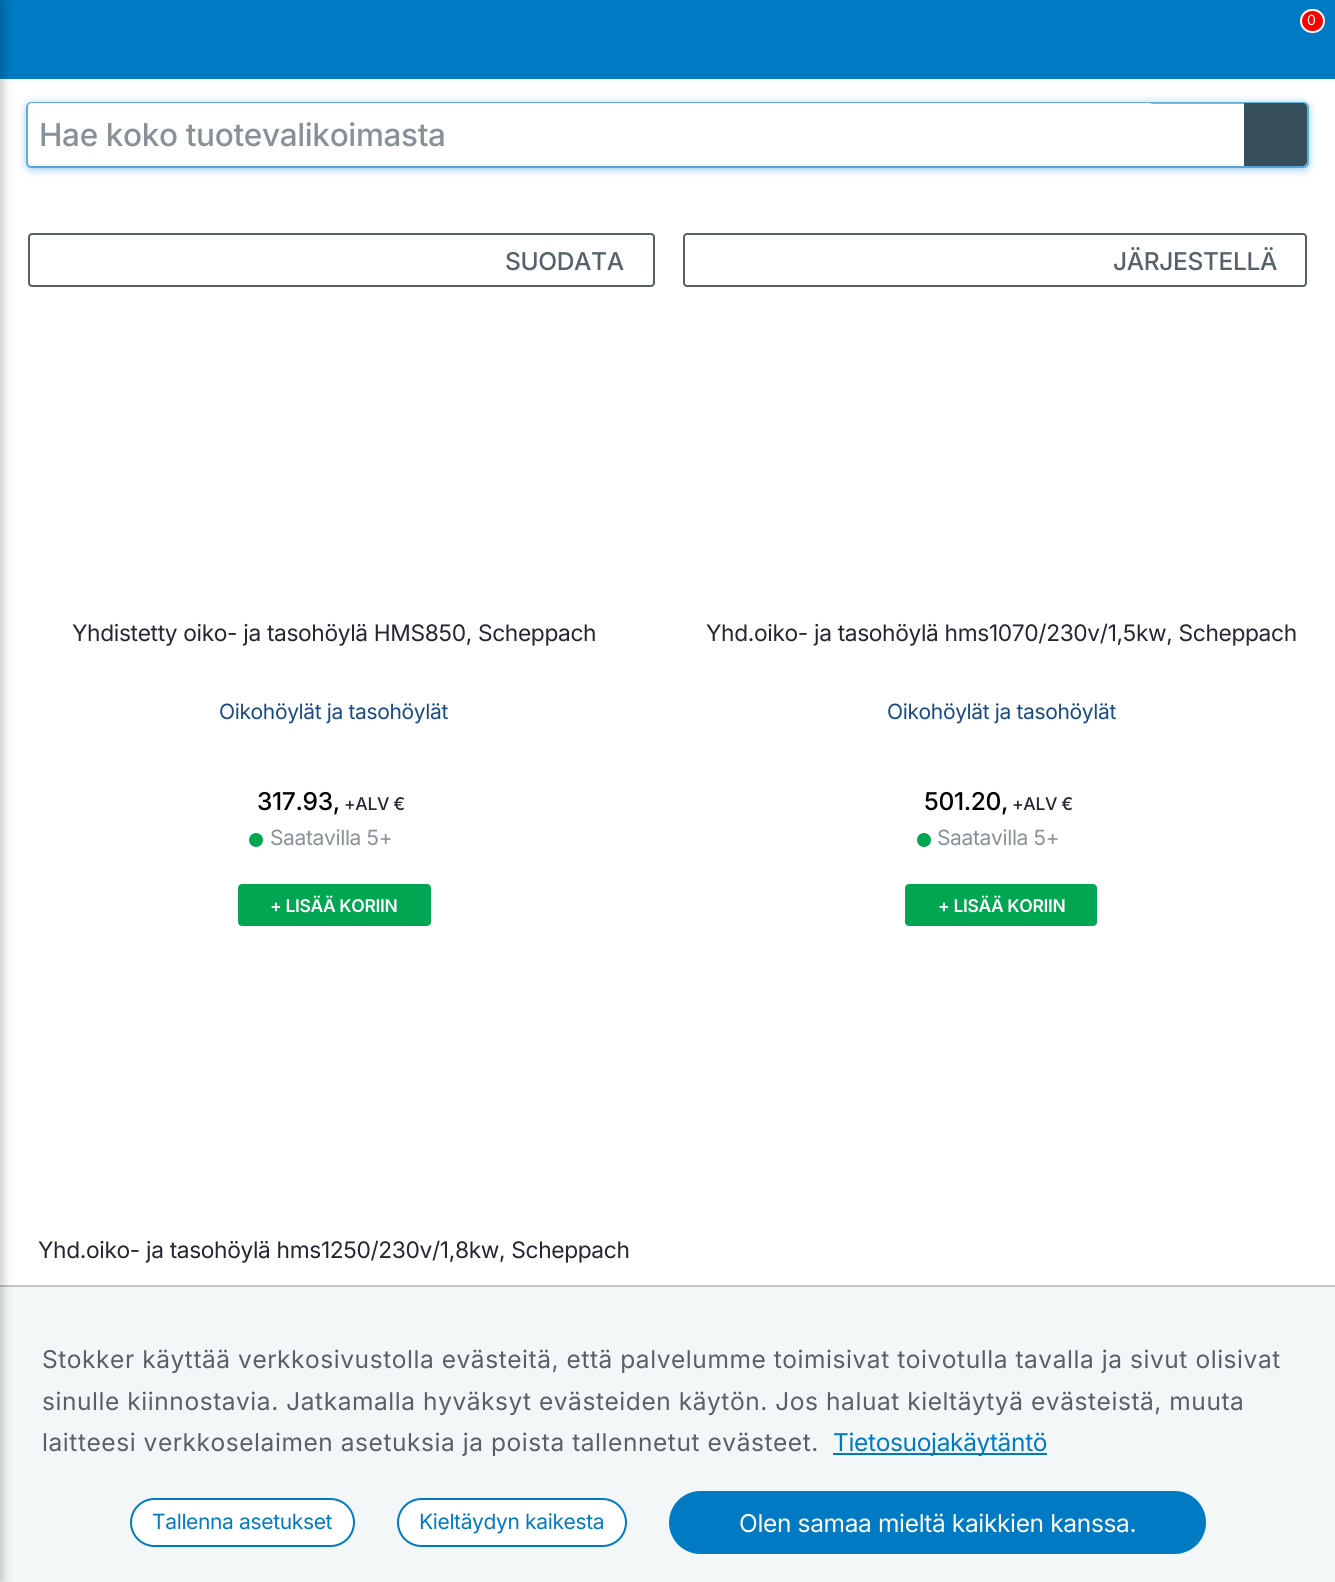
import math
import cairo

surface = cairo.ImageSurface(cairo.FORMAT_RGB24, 1335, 1582)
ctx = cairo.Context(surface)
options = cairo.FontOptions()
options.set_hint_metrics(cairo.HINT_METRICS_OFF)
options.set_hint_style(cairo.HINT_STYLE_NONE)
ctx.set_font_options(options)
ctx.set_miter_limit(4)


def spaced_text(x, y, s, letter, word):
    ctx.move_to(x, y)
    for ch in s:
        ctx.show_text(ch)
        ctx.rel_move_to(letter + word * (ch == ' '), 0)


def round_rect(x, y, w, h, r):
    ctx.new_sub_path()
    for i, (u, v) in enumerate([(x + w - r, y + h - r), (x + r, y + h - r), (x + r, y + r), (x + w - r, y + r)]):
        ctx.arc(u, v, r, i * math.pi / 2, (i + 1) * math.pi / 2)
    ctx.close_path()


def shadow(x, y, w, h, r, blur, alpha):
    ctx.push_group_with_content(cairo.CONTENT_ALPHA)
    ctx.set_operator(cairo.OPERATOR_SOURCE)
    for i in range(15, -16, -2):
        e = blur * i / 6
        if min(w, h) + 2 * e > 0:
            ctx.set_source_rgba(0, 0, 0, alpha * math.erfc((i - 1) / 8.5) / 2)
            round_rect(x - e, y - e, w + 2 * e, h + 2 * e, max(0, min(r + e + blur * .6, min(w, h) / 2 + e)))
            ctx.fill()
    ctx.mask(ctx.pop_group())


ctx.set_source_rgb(1, 1, 1)
ctx.paint()
ctx.set_source_rgb(0, 0.478, 0.761)
ctx.rectangle(0, 0, 1335, 79)
ctx.fill()
ctx.set_source_rgb(1, 0, 0)
round_rect(1301, 10, 23, 22, 11)
ctx.fill_preserve()
ctx.set_source_rgb(1, 1, 1)
ctx.stroke()
ctx.select_font_face("Inter")
ctx.set_font_size(14)
spaced_text(1307, 25, "0", -0.35, 0)
round_rect(27, 103, 1281, 64, 4)
ctx.set_source_rgb(0.478, 0.729, 0.875)
ctx.stroke()
ctx.save()
ctx.set_fill_rule(cairo.FILL_RULE_EVEN_ODD)
ctx.new_path()
ctx.move_to(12, 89)
ctx.line_to(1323, 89)
ctx.line_to(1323, 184)
ctx.line_to(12, 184)
ctx.close_path()
ctx.move_to(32, 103)
ctx.line_to(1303, 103)
ctx.curve_to(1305, 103, 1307, 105, 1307, 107)
ctx.line_to(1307, 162)
ctx.curve_to(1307, 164, 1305, 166, 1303, 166)
ctx.line_to(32, 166)
ctx.curve_to(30, 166, 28, 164, 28, 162)
ctx.line_to(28, 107)
ctx.curve_to(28, 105, 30, 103, 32, 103)
ctx.close_path()
ctx.clip()
ctx.set_source_rgb(0, 0.478, 0.761)
shadow(28, 105, 1279, 63, 4, 5, 0.56)
ctx.restore()
ctx.set_source_rgb(1, 1, 1)
round_rect(28, 103, 1125, 63, 4)
ctx.fill()
ctx.select_font_face("Inter Medium")
ctx.set_font_size(31.5)
ctx.set_source_rgb(0.529, 0.569, 0.592)
spaced_text(39, 146, "Hae koko tuotevalikoimasta", -0.35, 0)
ctx.set_source_rgb(0.216, 0.306, 0.357)
ctx.new_path()
ctx.move_to(1244, 103)
ctx.line_to(1303, 103)
ctx.curve_to(1305, 103, 1307, 105, 1307, 107)
ctx.line_to(1307, 162)
ctx.curve_to(1307, 164, 1305, 166, 1303, 166)
ctx.line_to(1244, 166)
ctx.close_path()
ctx.fill()
ctx.set_source_rgb(0.957, 0.965, 0.965)
ctx.rectangle(0, 1287, 1335, 295)
ctx.fill()
ctx.set_source_rgb(0.765, 0.773, 0.773)
ctx.rectangle(0, 1285, 1335, 2)
ctx.fill()
ctx.set_source_rgb(0, 0, 0)
shadow(-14, 0, 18, 1582, 0, 4.5, 0.2)
round_rect(29, 234, 625, 52, 3)
ctx.set_source_rgb(0.337, 0.38, 0.408)
ctx.stroke()
ctx.set_font_size(24.5)
spaced_text(505, 270, "SUODATA", -0.35, 0)
round_rect(684, 234, 622, 52, 3)
ctx.stroke()
spaced_text(1113, 270, "JÄRJESTELLÄ", -0.35, 0)
ctx.select_font_face("Inter")
ctx.set_font_size(22.75)
ctx.set_source_rgb(0.149, 0.149, 0.2)
spaced_text(72, 641, "Yhdistetty oiko- ja tasohöylä HMS850, Scheppach", -0.35, 0)
ctx.set_font_size(21)
ctx.set_source_rgb(0.098, 0.29, 0.514)
spaced_text(219, 719, "Oikohöylät ja tasohöylät", -0.35, 0)
ctx.select_font_face("Inter Medium")
ctx.set_font_size(24.5)
ctx.set_source_rgb(0, 0, 0)
spaced_text(257, 810, "317.93,", -0.35, 0)
ctx.set_font_size(17.5)
ctx.set_source_rgb(0.149, 0.149, 0.2)
spaced_text(344, 810, "+ALV €", -0.35, 0)
ctx.set_source_rgb(0, 0.651, 0.318)
ctx.new_path()
ctx.arc(256, 840, 7, 0, 2 * math.pi)
ctx.fill()
ctx.select_font_face("Inter")
ctx.set_font_size(21)
ctx.set_source_rgb(0.529, 0.569, 0.592)
spaced_text(270, 845, "Saatavilla 5+", -0.35, 0)
ctx.set_source_rgb(0, 0.651, 0.318)
round_rect(239, 885, 191, 40, 3)
ctx.fill_preserve()
ctx.stroke()
ctx.select_font_face("Inter SemiBold")
ctx.set_font_size(17.5)
ctx.set_source_rgb(1, 1, 1)
spaced_text(270, 912, "+ LISÄÄ KORIIN", -0.35, 0)
ctx.select_font_face("Inter")
ctx.set_font_size(22.75)
ctx.set_source_rgb(0.149, 0.149, 0.2)
spaced_text(706, 641, "Yhd.oiko- ja tasohöylä hms1070/230v/1,5kw, Scheppach", -0.35, 0)
ctx.set_font_size(21)
ctx.set_source_rgb(0.098, 0.29, 0.514)
spaced_text(887, 719, "Oikohöylät ja tasohöylät", -0.35, 0)
ctx.select_font_face("Inter Medium")
ctx.set_font_size(24.5)
ctx.set_source_rgb(0, 0, 0)
spaced_text(924, 810, "501.20,", -0.35, 0)
ctx.set_font_size(17.5)
ctx.set_source_rgb(0.149, 0.149, 0.2)
spaced_text(1012, 810, "+ALV €", -0.35, 0)
ctx.set_source_rgb(0, 0.651, 0.318)
ctx.new_path()
ctx.arc(924, 840, 7, 0, 2 * math.pi)
ctx.fill()
ctx.select_font_face("Inter")
ctx.set_font_size(21)
ctx.set_source_rgb(0.529, 0.569, 0.592)
spaced_text(937, 845, "Saatavilla 5+", -0.35, 0)
ctx.set_source_rgb(0, 0.651, 0.318)
round_rect(906, 885, 190, 40, 3)
ctx.fill_preserve()
ctx.stroke()
ctx.select_font_face("Inter SemiBold")
ctx.set_font_size(17.5)
ctx.set_source_rgb(1, 1, 1)
spaced_text(938, 912, "+ LISÄÄ KORIIN", -0.35, 0)
ctx.select_font_face("Inter")
ctx.set_font_size(22.75)
ctx.set_source_rgb(0.149, 0.149, 0.2)
spaced_text(38, 1258, "Yhd.oiko- ja tasohöylä hms1250/230v/1,8kw, Scheppach", -0.35, 0)
ctx.set_font_size(24.5)
ctx.set_source_rgb(0.337, 0.38, 0.408)
spaced_text(42, 1368, "Stokker käyttää verkkosivustolla evästeitä, että palvelumme toimisivat toivotulla tavalla ja sivut olisivat", 0.56, 0)
spaced_text(42, 1410, "sinulle kiinnostavia. Jatkamalla hyväksyt evästeiden käytön. Jos haluat kieltäytyä evästeistä, muuta", 0.56, 0)
spaced_text(42, 1451, "laitteesi verkkoselaimen asetuksia ja poista tallennetut evästeet.", 0.56, 0)
ctx.set_source_rgb(0, 0.478, 0.761)
ctx.rectangle(833, 1453, 214, 2)
ctx.fill()
spaced_text(833, 1451, "Tietosuojakäytäntö", -0.35, 0)
ctx.set_source_rgb(1, 1, 1)
round_rect(131, 1499, 223, 47, 23.5)
ctx.fill_preserve()
ctx.set_source_rgb(0, 0.478, 0.761)
ctx.stroke()
ctx.set_font_size(21)
spaced_text(152, 1529, "Tallenna asetukset", -0.35, 0)
ctx.set_source_rgb(1, 1, 1)
round_rect(398, 1499, 228, 47, 23.5)
ctx.fill_preserve()
ctx.set_source_rgb(0, 0.478, 0.761)
ctx.stroke()
spaced_text(419, 1529, "Kieltäydyn kaikesta", -0.35, 0)
round_rect(669, 1491, 537, 63, 31.5)
ctx.fill()
ctx.set_font_size(24.5)
ctx.set_source_rgb(1, 1, 1)
spaced_text(739, 1532, "Olen samaa mieltä kaikkien kanssa.", -0.35, 0)
surface.write_to_png("page.png")
